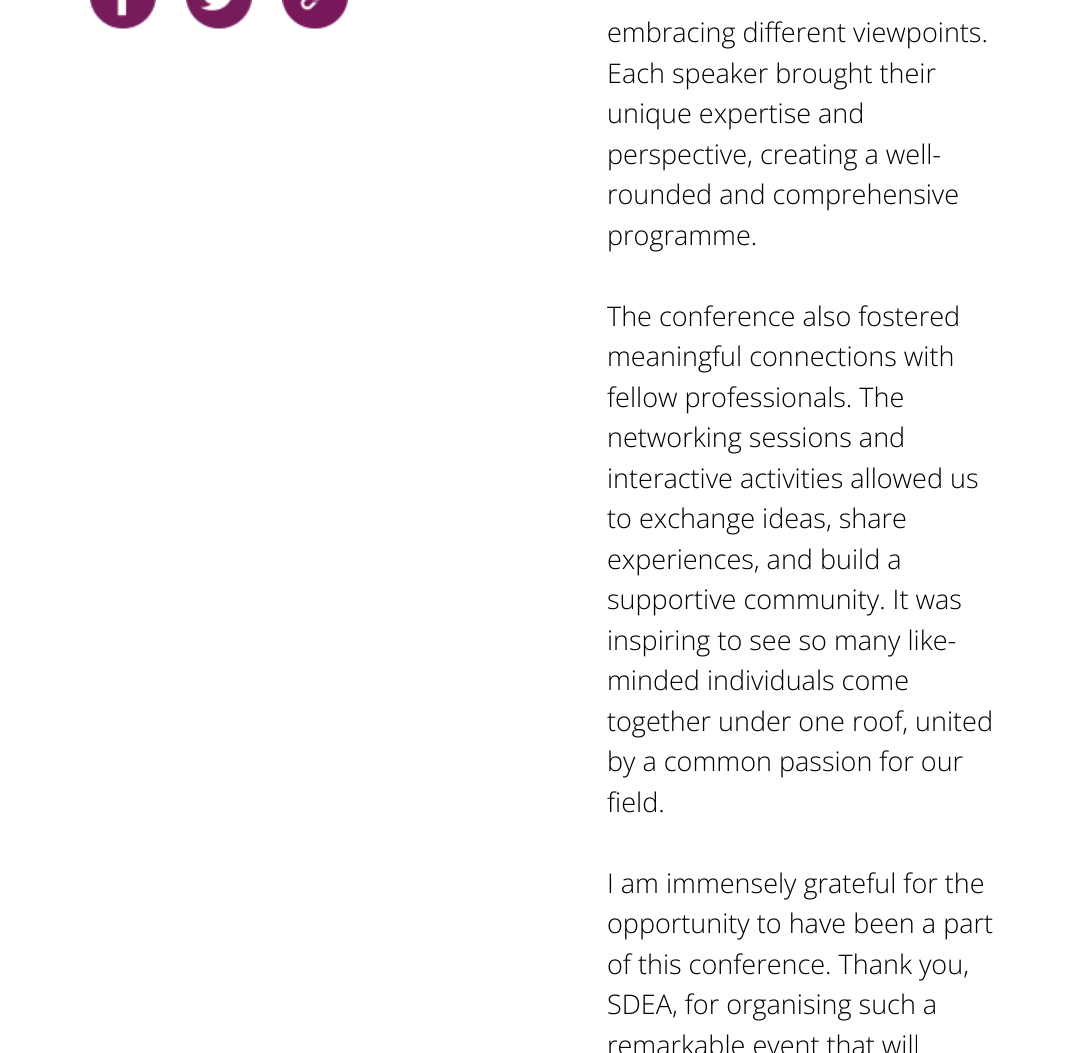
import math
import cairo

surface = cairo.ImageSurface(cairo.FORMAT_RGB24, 1088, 1053)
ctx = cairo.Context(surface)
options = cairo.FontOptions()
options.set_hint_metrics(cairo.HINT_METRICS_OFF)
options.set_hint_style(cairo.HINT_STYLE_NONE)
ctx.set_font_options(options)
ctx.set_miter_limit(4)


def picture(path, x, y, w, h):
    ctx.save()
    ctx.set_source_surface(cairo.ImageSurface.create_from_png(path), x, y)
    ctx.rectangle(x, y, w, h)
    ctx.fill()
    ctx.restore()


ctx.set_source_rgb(1, 1, 1)
ctx.paint()
picture("img1.png", 90, 0, 66, 29)
picture("img2.png", 186, 0, 66, 29)
picture("img3.png", 282, 0, 66, 29)
ctx.select_font_face("Open Sans Light")
ctx.set_font_size(27)
ctx.set_source_rgb(0, 0, 0)
ctx.move_to(607, 42)
ctx.show_text("embracing different viewpoints.")
ctx.move_to(607, 83)
ctx.show_text("Each speaker brought their")
ctx.move_to(607, 123)
ctx.show_text("unique expertise and")
ctx.move_to(607, 164)
ctx.show_text("perspective, creating a well-")
ctx.move_to(607, 204)
ctx.show_text("rounded and comprehensive")
ctx.move_to(607, 245)
ctx.show_text("programme.")
ctx.move_to(607, 326)
ctx.show_text("The conference also fostered")
ctx.move_to(607, 366)
ctx.show_text("meaningful connections with")
ctx.move_to(607, 407)
ctx.show_text("fellow professionals. The")
ctx.move_to(607, 447)
ctx.show_text("networking sessions and")
ctx.move_to(607, 488)
ctx.show_text("interactive activities allowed us")
ctx.move_to(607, 528)
ctx.show_text("to exchange ideas, share")
ctx.move_to(607, 569)
ctx.show_text("experiences, and build a")
ctx.move_to(607, 609)
ctx.show_text("supportive community. It was")
ctx.move_to(607, 650)
ctx.show_text("inspiring to see so many like-")
ctx.move_to(607, 690)
ctx.show_text("minded individuals come")
ctx.move_to(607, 731)
ctx.show_text("together under one roof, united")
ctx.move_to(607, 771)
ctx.show_text("by a common passion for our")
ctx.move_to(607, 812)
ctx.show_text("field.")
ctx.move_to(607, 893)
ctx.show_text("I am immensely grateful for the")
ctx.move_to(607, 933)
ctx.show_text("opportunity to have been a part")
ctx.move_to(607, 974)
ctx.show_text("of this conference. Thank you,")
ctx.move_to(607, 1014)
ctx.show_text("SDEA, for organising such a")
ctx.move_to(607, 1055)
ctx.show_text("remarkable event that will")
surface.write_to_png("page.png")
